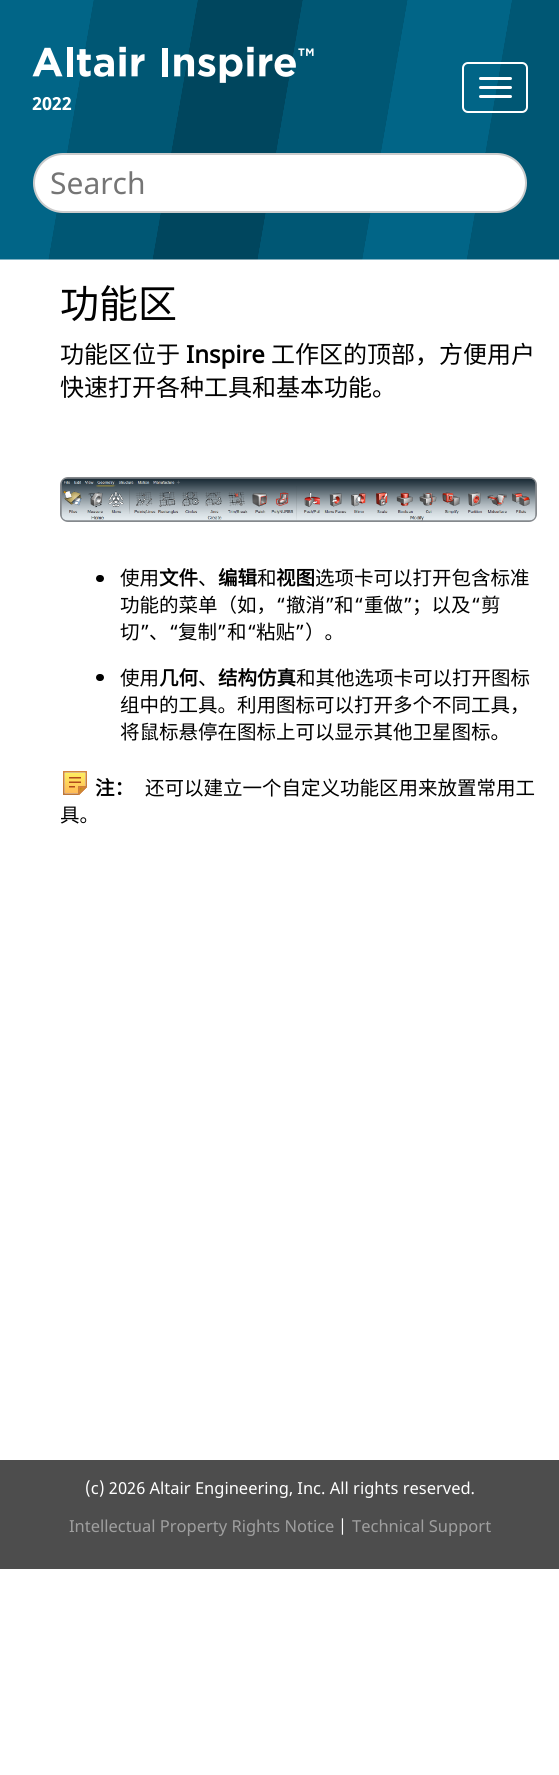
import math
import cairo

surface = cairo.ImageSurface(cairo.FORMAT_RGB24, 559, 1775)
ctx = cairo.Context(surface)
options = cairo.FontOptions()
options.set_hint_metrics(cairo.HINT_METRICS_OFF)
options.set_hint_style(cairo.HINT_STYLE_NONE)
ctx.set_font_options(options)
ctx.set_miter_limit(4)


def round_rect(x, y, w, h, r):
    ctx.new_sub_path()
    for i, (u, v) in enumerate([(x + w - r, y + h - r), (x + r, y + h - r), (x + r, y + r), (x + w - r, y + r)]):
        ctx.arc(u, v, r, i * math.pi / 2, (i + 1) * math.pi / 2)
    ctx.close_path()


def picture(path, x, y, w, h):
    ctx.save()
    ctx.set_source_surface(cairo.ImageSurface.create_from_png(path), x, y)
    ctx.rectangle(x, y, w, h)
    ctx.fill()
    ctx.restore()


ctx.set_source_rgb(1, 1, 1)
ctx.paint()
picture("img1.png", 0, 0, 559, 260)
picture("img2.png", 32, 46, 282, 37)
ctx.select_font_face("Noto Sans", cairo.FONT_SLANT_NORMAL, cairo.FONT_WEIGHT_BOLD)
ctx.set_font_size(18)
ctx.set_source_rgb(1, 1, 1)
ctx.move_to(32, 110)
ctx.show_text("2022")
round_rect(463, 63, 64, 49, 5)
ctx.stroke()
round_rect(479, 77, 33, 3, 1.5)
ctx.fill()
round_rect(479, 86, 33, 3, 1.5)
ctx.fill()
round_rect(479, 95, 33, 3, 1.5)
ctx.fill()
round_rect(34, 154, 492, 58, 29)
ctx.fill_preserve()
ctx.set_source_rgb(0.8, 0.8, 0.8)
ctx.stroke()
ctx.select_font_face("Noto Sans")
ctx.set_font_size(30)
ctx.set_source_rgb(0.459, 0.459, 0.459)
ctx.move_to(50, 194)
ctx.show_text("Search")
ctx.select_font_face("Noto Sans CJK SC")
ctx.set_font_size(39)
ctx.set_source_rgb(0, 0, 0)
ctx.move_to(60, 318)
ctx.show_text("功能区")
ctx.set_font_size(24)
ctx.move_to(60, 363)
ctx.show_text("功能区位于")
ctx.select_font_face("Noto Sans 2", cairo.FONT_SLANT_NORMAL, cairo.FONT_WEIGHT_BOLD)
ctx.move_to(186, 363)
ctx.show_text("Inspire")
ctx.select_font_face("Noto Sans CJK SC")
ctx.move_to(271, 363)
ctx.show_text("工作区的顶部，方便用户")
ctx.move_to(60, 396)
ctx.show_text("快速打开各种工具和基本功能。")
round_rect(61, 478, 475, 43, 7)
ctx.set_source_rgb(0.522, 0.537, 0.553)
ctx.stroke()
picture("img3.png", 61, 478, 475, 43)
ctx.set_source_rgb(0, 0, 0)
round_rect(96, 575, 8, 7, 3.5)
ctx.fill()
ctx.set_font_size(19.5)
ctx.move_to(120, 585)
ctx.show_text("使用")
ctx.select_font_face("Noto Sans CJK SC", cairo.FONT_SLANT_NORMAL, cairo.FONT_WEIGHT_BOLD)
ctx.move_to(159, 585)
ctx.show_text("文件")
ctx.move_to(218, 585)
ctx.show_text("编辑")
ctx.select_font_face("Noto Sans CJK SC")
ctx.move_to(257, 585)
ctx.show_text("和")
ctx.select_font_face("Noto Sans CJK SC", cairo.FONT_SLANT_NORMAL, cairo.FONT_WEIGHT_BOLD)
ctx.move_to(276, 585)
ctx.show_text("视图")
ctx.select_font_face("Noto Sans CJK SC")
ctx.move_to(315, 585)
ctx.show_text("选项卡可以打开包含标准")
ctx.move_to(198, 585)
ctx.show_text("、")
ctx.move_to(120, 612)
ctx.show_text("功能的菜单（如，")
ctx.select_font_face("Noto Sans")
ctx.move_to(276, 612)
ctx.show_text("“")
ctx.select_font_face("Noto Sans CJK SC")
ctx.move_to(286, 612)
ctx.show_text("撤消")
ctx.select_font_face("Noto Sans")
ctx.move_to(325, 612)
ctx.show_text("”")
ctx.select_font_face("Noto Sans CJK SC")
ctx.move_to(334, 612)
ctx.show_text("和")
ctx.select_font_face("Noto Sans")
ctx.move_to(354, 612)
ctx.show_text("“")
ctx.select_font_face("Noto Sans CJK SC")
ctx.move_to(364, 612)
ctx.show_text("重做")
ctx.select_font_face("Noto Sans")
ctx.move_to(403, 612)
ctx.show_text("”")
ctx.select_font_face("Noto Sans CJK SC")
ctx.move_to(412, 612)
ctx.show_text("；以及")
ctx.select_font_face("Noto Sans")
ctx.move_to(471, 612)
ctx.show_text("“")
ctx.select_font_face("Noto Sans CJK SC")
ctx.move_to(481, 612)
ctx.show_text("剪")
ctx.move_to(120, 639)
ctx.show_text("切")
ctx.select_font_face("Noto Sans")
ctx.move_to(140, 639)
ctx.show_text("”")
ctx.move_to(169, 639)
ctx.show_text("“")
ctx.select_font_face("Noto Sans CJK SC")
ctx.move_to(178, 639)
ctx.show_text("复制")
ctx.select_font_face("Noto Sans")
ctx.move_to(217, 639)
ctx.show_text("”")
ctx.select_font_face("Noto Sans CJK SC")
ctx.move_to(227, 639)
ctx.show_text("和")
ctx.select_font_face("Noto Sans")
ctx.move_to(247, 639)
ctx.show_text("“")
ctx.select_font_face("Noto Sans CJK SC")
ctx.move_to(256, 639)
ctx.show_text("粘贴")
ctx.select_font_face("Noto Sans")
ctx.move_to(295, 639)
ctx.show_text("”")
ctx.select_font_face("Noto Sans CJK SC")
ctx.move_to(305, 639)
ctx.show_text("）。")
ctx.move_to(149, 639)
ctx.show_text("、")
round_rect(96, 674, 8, 7, 3.5)
ctx.fill()
ctx.move_to(120, 685)
ctx.show_text("使用")
ctx.select_font_face("Noto Sans CJK SC", cairo.FONT_SLANT_NORMAL, cairo.FONT_WEIGHT_BOLD)
ctx.move_to(159, 685)
ctx.show_text("几何")
ctx.move_to(218, 685)
ctx.show_text("结构仿真")
ctx.select_font_face("Noto Sans CJK SC")
ctx.move_to(296, 685)
ctx.show_text("和其他选项卡可以打开图标")
ctx.move_to(198, 685)
ctx.show_text("、")
ctx.move_to(120, 712)
ctx.show_text("组中的工具。利用图标可以打开多个不同工具，")
ctx.move_to(120, 739)
ctx.show_text("将鼠标悬停在图标上可以显示其他卫星图标。")
picture("img4.png", 63, 771, 24, 24)
ctx.select_font_face("Noto Sans CJK SC", cairo.FONT_SLANT_NORMAL, cairo.FONT_WEIGHT_BOLD)
ctx.move_to(95, 795)
ctx.show_text("注：")
ctx.select_font_face("Noto Sans CJK SC")
ctx.move_to(145, 795)
ctx.show_text("还可以建立一个自定义功能区用来放置常用工")
ctx.move_to(60, 822)
ctx.show_text("具。")
ctx.set_source_rgb(0.302, 0.302, 0.302)
ctx.rectangle(0, 1460, 559, 109)
ctx.fill()
ctx.select_font_face("Noto Sans")
ctx.set_font_size(16.5)
ctx.set_source_rgb(1, 1, 1)
ctx.move_to(85, 1494)
ctx.show_text("(c) 2026 Altair Engineering, Inc. All rights reserved.")
ctx.set_source_rgb(0.624, 0.624, 0.624)
ctx.move_to(69, 1532)
ctx.show_text("Intellectual Property Rights Notice")
ctx.set_source_rgb(1, 1, 1)
ctx.move_to(338, 1532)
ctx.show_text("|")
ctx.set_source_rgb(0.624, 0.624, 0.624)
ctx.move_to(352, 1532)
ctx.show_text("Technical Support")
surface.write_to_png("page.png")
